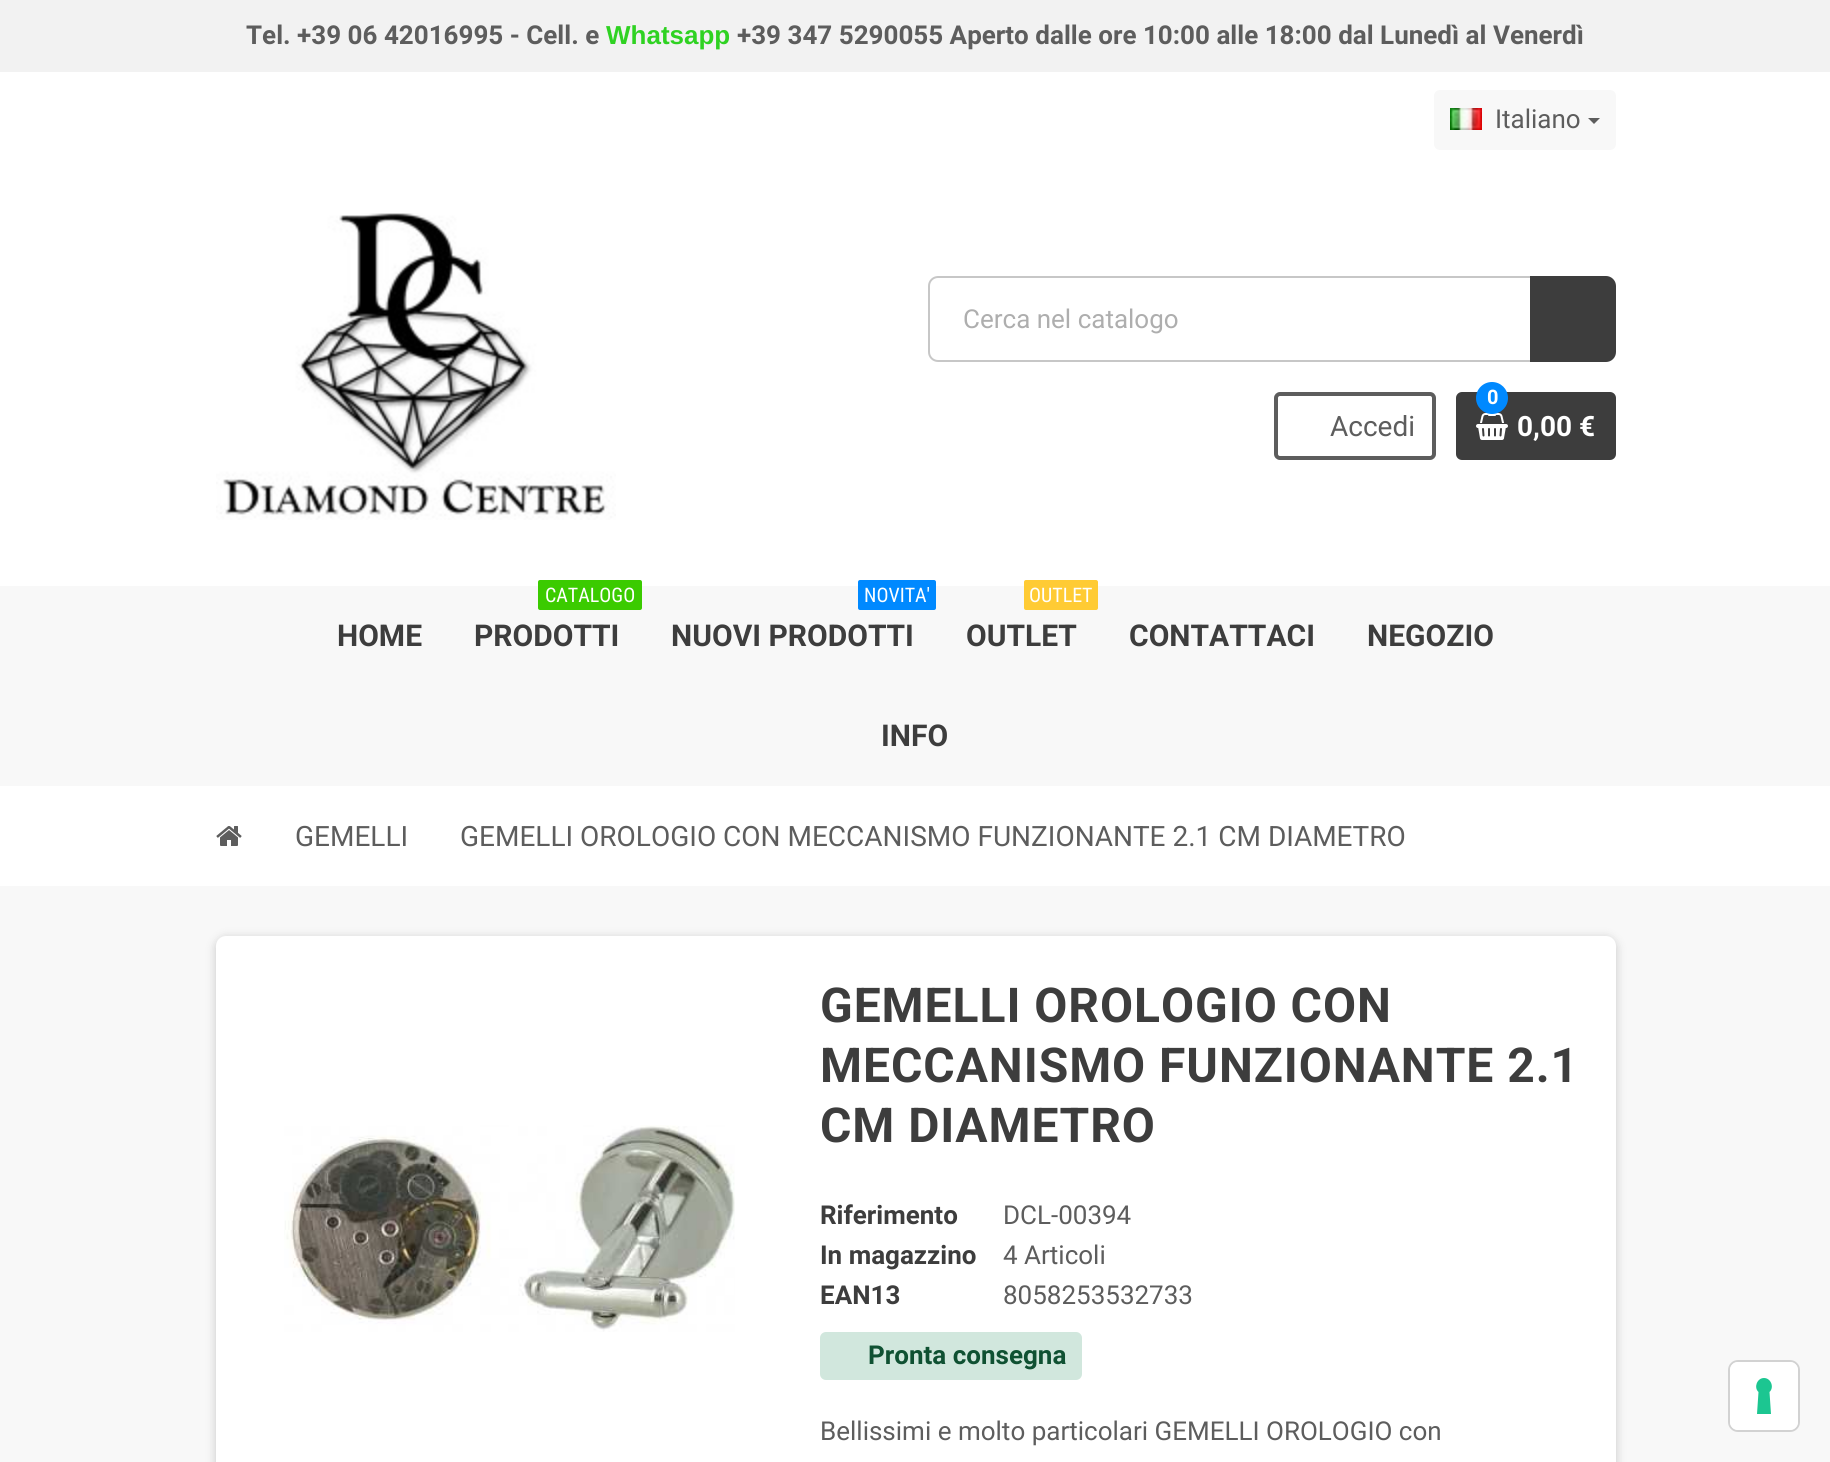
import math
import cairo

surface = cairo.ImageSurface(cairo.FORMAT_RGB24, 1830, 1462)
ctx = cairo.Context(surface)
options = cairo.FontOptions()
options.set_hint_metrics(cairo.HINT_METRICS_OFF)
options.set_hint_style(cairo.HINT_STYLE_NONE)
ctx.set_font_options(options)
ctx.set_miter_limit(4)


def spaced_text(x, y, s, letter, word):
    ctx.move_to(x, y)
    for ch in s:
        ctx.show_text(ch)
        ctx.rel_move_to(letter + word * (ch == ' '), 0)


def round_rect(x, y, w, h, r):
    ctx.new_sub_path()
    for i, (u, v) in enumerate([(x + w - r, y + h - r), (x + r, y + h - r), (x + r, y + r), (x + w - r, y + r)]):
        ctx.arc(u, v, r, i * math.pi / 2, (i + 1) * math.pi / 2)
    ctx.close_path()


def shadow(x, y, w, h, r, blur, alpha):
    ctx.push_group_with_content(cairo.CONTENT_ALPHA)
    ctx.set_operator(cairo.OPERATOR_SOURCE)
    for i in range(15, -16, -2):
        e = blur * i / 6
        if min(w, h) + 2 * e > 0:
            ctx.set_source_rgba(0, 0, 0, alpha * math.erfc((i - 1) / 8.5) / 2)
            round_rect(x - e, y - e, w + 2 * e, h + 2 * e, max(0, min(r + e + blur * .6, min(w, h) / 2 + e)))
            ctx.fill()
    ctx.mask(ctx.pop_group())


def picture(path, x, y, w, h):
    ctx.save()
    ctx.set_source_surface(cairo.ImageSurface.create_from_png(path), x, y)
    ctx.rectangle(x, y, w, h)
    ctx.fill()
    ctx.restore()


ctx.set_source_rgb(1, 1, 1)
ctx.paint()
ctx.set_source_rgb(0.949, 0.949, 0.949)
ctx.rectangle(0, 0, 1830, 72)
ctx.fill()
ctx.select_font_face("Roboto", cairo.FONT_SLANT_NORMAL, cairo.FONT_WEIGHT_BOLD)
ctx.set_font_size(26)
ctx.set_source_rgb(0.365, 0.365, 0.365)
ctx.move_to(246, 44)
ctx.show_text("Tel. +39 06 42016995 - Cell. e")
ctx.select_font_face("Liberation Sans", cairo.FONT_SLANT_NORMAL, cairo.FONT_WEIGHT_BOLD)
ctx.set_source_rgb(0.184, 0.824, 0.133)
ctx.move_to(606, 44)
ctx.show_text("Whatsapp")
ctx.select_font_face("Roboto", cairo.FONT_SLANT_NORMAL, cairo.FONT_WEIGHT_BOLD)
ctx.set_source_rgb(0.365, 0.365, 0.365)
ctx.move_to(737, 44)
ctx.show_text("+39 347 5290055 Aperto dalle ore 10:00 alle 18:00 dal Lunedì al Venerdì")
ctx.set_source_rgb(0.969, 0.969, 0.969)
round_rect(1434, 90, 182, 60, 6)
ctx.fill()
picture("img1.png", 1450, 108, 32, 22)
ctx.select_font_face("Roboto")
ctx.set_source_rgb(0.365, 0.365, 0.365)
ctx.move_to(1495, 128)
ctx.show_text("Italiano")
ctx.new_path()
ctx.move_to(1588, 118)
ctx.line_to(1600, 118)
ctx.line_to(1594, 124)
ctx.close_path()
ctx.fill()
picture("img2.png", 216, 213, 400, 307)
round_rect(929, 277, 684, 84, 9)
ctx.set_source_rgb(0.78, 0.78, 0.78)
ctx.stroke()
ctx.set_source_rgb(0.682, 0.682, 0.682)
ctx.move_to(963, 328)
ctx.show_text("Cerca nel catalogo")
ctx.set_source_rgb(0.239, 0.239, 0.239)
ctx.new_path()
ctx.move_to(1530, 276)
ctx.line_to(1606, 276)
ctx.curve_to(1611.5, 276, 1616, 280.5, 1616, 286)
ctx.line_to(1616, 352)
ctx.curve_to(1616, 357.5, 1611.5, 362, 1606, 362)
ctx.line_to(1530, 362)
ctx.close_path()
ctx.fill()
round_rect(1276, 394, 158, 64, 4)
ctx.set_source_rgb(0.365, 0.365, 0.365)
ctx.set_line_width(4)
ctx.stroke()
ctx.set_font_size(28)
ctx.move_to(1330, 436)
ctx.show_text("Accedi")
ctx.set_source_rgb(0.239, 0.239, 0.239)
round_rect(1456, 392, 160, 68, 6)
ctx.fill()
picture("img3.png", 1476, 413, 32, 27)
ctx.set_source_rgb(0, 0.537, 1)
ctx.arc(1492, 398, 16, 0, 2 * math.pi)
ctx.fill()
ctx.select_font_face("Roboto", cairo.FONT_SLANT_NORMAL, cairo.FONT_WEIGHT_BOLD)
ctx.set_font_size(20)
ctx.set_source_rgb(1, 1, 1)
ctx.move_to(1487, 404)
ctx.show_text("0")
ctx.set_font_size(28)
ctx.move_to(1517, 436)
ctx.show_text("0,00 €")
ctx.set_source_rgb(0.969, 0.969, 0.969)
ctx.rectangle(0, 586, 1830, 200)
ctx.fill()
ctx.select_font_face("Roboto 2", cairo.FONT_SLANT_NORMAL, cairo.FONT_WEIGHT_BOLD)
ctx.set_font_size(30)
ctx.set_source_rgb(0.239, 0.239, 0.239)
ctx.move_to(337, 646)
ctx.show_text("HOME")
ctx.set_source_rgb(0.231, 0.796, 0)
round_rect(538, 580, 104, 30, 2)
ctx.fill()
ctx.select_font_face("Roboto Condensed")
ctx.set_font_size(20)
ctx.set_source_rgb(1, 1, 1)
ctx.move_to(545, 602)
ctx.show_text("CATALOGO")
ctx.select_font_face("Roboto 2", cairo.FONT_SLANT_NORMAL, cairo.FONT_WEIGHT_BOLD)
ctx.set_font_size(30)
ctx.set_source_rgb(0.239, 0.239, 0.239)
ctx.move_to(474, 646)
ctx.show_text("PRODOTTI")
ctx.set_source_rgb(0, 0.537, 1)
round_rect(858, 580, 78, 30, 2)
ctx.fill()
ctx.select_font_face("Roboto Condensed")
ctx.set_font_size(20)
ctx.set_source_rgb(1, 1, 1)
ctx.move_to(864, 602)
ctx.show_text("NOVITA'")
ctx.select_font_face("Roboto 2", cairo.FONT_SLANT_NORMAL, cairo.FONT_WEIGHT_BOLD)
ctx.set_font_size(30)
ctx.set_source_rgb(0.239, 0.239, 0.239)
ctx.move_to(671, 646)
ctx.show_text("NUOVI PRODOTTI")
ctx.set_source_rgb(1, 0.796, 0.204)
round_rect(1024, 580, 74, 30, 2)
ctx.fill()
ctx.select_font_face("Roboto Condensed")
ctx.set_font_size(20)
ctx.set_source_rgb(1, 1, 1)
ctx.move_to(1029, 602)
ctx.show_text("OUTLET")
ctx.select_font_face("Roboto 2", cairo.FONT_SLANT_NORMAL, cairo.FONT_WEIGHT_BOLD)
ctx.set_font_size(30)
ctx.set_source_rgb(0.239, 0.239, 0.239)
ctx.move_to(966, 646)
ctx.show_text("OUTLET")
ctx.move_to(1129, 646)
ctx.show_text("CONTATTACI")
ctx.move_to(1367, 646)
ctx.show_text("NEGOZIO")
ctx.move_to(881, 746)
ctx.show_text("INFO")
ctx.set_source_rgb(0.969, 0.969, 0.969)
ctx.rectangle(0, 886, 1830, 576)
ctx.fill()
picture("img4.png", 216, 826, 26, 20)
ctx.select_font_face("Roboto")
ctx.set_font_size(28)
ctx.set_source_rgb(0.365, 0.365, 0.365)
ctx.move_to(295, 846)
ctx.show_text("GEMELLI")
ctx.move_to(460, 846)
ctx.show_text("GEMELLI OROLOGIO CON MECCANISMO FUNZIONANTE 2.1 CM DIAMETRO")
ctx.set_source_rgb(0, 0, 0)
shadow(216, 938, 1400, 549, 10, 5, 0.2)
ctx.set_source_rgb(1, 1, 1)
round_rect(216, 936, 1400, 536, 10)
ctx.fill()
picture("img5.png", 284, 1125, 451, 207)
ctx.select_font_face("Roboto 2", cairo.FONT_SLANT_NORMAL, cairo.FONT_WEIGHT_BOLD)
ctx.set_font_size(48)
ctx.set_source_rgb(0.239, 0.239, 0.239)
spaced_text(820, 1022, "GEMELLI OROLOGIO CON", 0.95, 0)
spaced_text(820, 1082, "MECCANISMO FUNZIONANTE 2.1", 0.95, 0)
spaced_text(820, 1142, "CM DIAMETRO", 0.95, 0)
ctx.select_font_face("Roboto", cairo.FONT_SLANT_NORMAL, cairo.FONT_WEIGHT_BOLD)
ctx.set_font_size(26)
ctx.move_to(820, 1224)
ctx.show_text("Riferimento")
ctx.select_font_face("Roboto")
ctx.set_source_rgb(0.365, 0.365, 0.365)
ctx.move_to(1003, 1224)
ctx.show_text("DCL-00394")
ctx.select_font_face("Roboto", cairo.FONT_SLANT_NORMAL, cairo.FONT_WEIGHT_BOLD)
ctx.set_source_rgb(0.239, 0.239, 0.239)
ctx.move_to(820, 1264)
ctx.show_text("In magazzino")
ctx.select_font_face("Roboto")
ctx.set_source_rgb(0.365, 0.365, 0.365)
ctx.move_to(1003, 1264)
ctx.show_text("4 Articoli")
ctx.select_font_face("Roboto", cairo.FONT_SLANT_NORMAL, cairo.FONT_WEIGHT_BOLD)
ctx.set_source_rgb(0.239, 0.239, 0.239)
ctx.move_to(820, 1304)
ctx.show_text("EAN13")
ctx.select_font_face("Roboto")
ctx.set_source_rgb(0.365, 0.365, 0.365)
ctx.move_to(1003, 1304)
ctx.show_text("8058253532733")
ctx.set_source_rgb(0.82, 0.906, 0.867)
round_rect(820, 1332, 262, 48, 6)
ctx.fill()
ctx.select_font_face("Roboto", cairo.FONT_SLANT_NORMAL, cairo.FONT_WEIGHT_BOLD)
ctx.set_source_rgb(0.059, 0.318, 0.196)
ctx.move_to(868, 1364)
ctx.show_text("Pronta consegna")
ctx.select_font_face("Roboto")
ctx.set_source_rgb(0.365, 0.365, 0.365)
ctx.move_to(820, 1440)
ctx.show_text("Bellissimi e molto particolari GEMELLI OROLOGIO con")
round_rect(1729, 1361, 70, 70, 9)
ctx.set_source_rgb(0.824, 0.824, 0.824)
ctx.set_line_width(2)
ctx.stroke()
ctx.set_source_rgb(1, 1, 1)
round_rect(1730, 1362, 68, 68, 8)
ctx.fill()
ctx.set_source_rgb(0.11, 0.776, 0.569)
ctx.set_fill_rule(cairo.FILL_RULE_EVEN_ODD)
ctx.new_path()
ctx.move_to(1764, 1378)
ctx.curve_to(1771, 1378, 1774.5, 1387.5, 1769.5, 1392)
ctx.line_to(1771, 1414)
ctx.line_to(1757, 1414)
ctx.line_to(1758.5, 1392)
ctx.curve_to(1753.5, 1387.5, 1757, 1378, 1764, 1378)
ctx.close_path()
ctx.fill()
surface.write_to_png("page.png")
